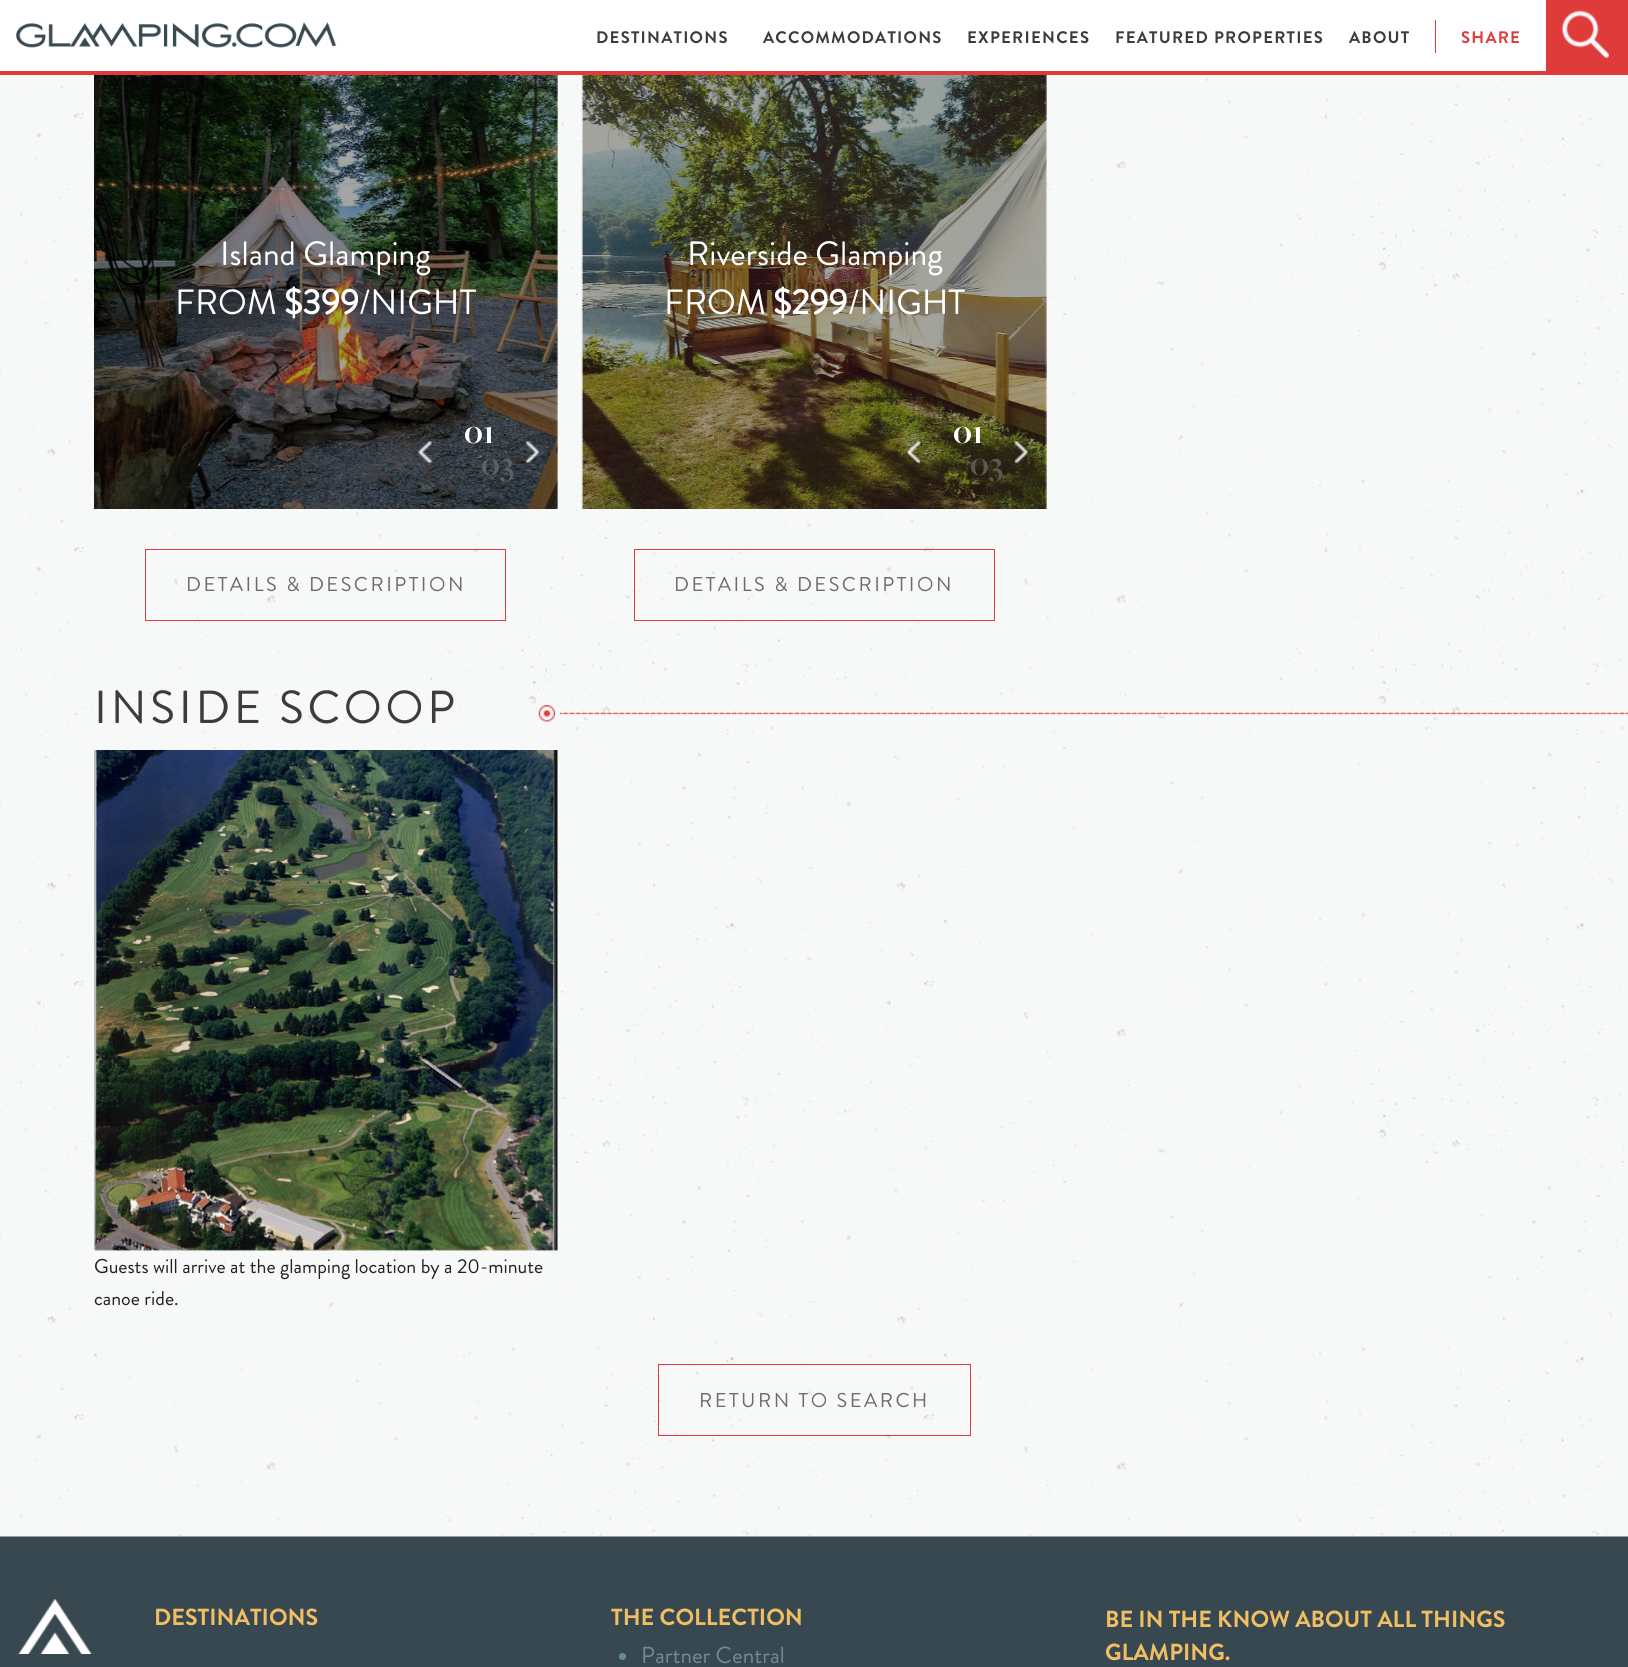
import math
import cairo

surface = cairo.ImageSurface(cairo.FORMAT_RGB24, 1628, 1667)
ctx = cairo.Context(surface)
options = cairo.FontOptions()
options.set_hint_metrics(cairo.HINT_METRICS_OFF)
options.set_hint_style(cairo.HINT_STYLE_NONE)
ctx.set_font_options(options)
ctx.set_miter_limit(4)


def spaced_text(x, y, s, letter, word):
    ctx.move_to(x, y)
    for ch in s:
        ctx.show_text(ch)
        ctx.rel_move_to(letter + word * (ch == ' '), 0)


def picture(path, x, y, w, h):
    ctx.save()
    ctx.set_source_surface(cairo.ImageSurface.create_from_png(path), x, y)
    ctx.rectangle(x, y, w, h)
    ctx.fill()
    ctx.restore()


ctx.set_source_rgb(0.22, 0.282, 0.314)
ctx.paint()
ctx.set_source_rgb(1, 1, 1)
ctx.rectangle(0, 0, 1546, 71)
ctx.fill()
ctx.set_source_rgb(0.875, 0.231, 0.231)
ctx.rectangle(0, 71, 1628, 4)
ctx.fill()
picture("img1.png", 16, 22, 321, 26)
ctx.select_font_face("Brandon Grotesque", cairo.FONT_SLANT_NORMAL, cairo.FONT_WEIGHT_BOLD)
ctx.set_font_size(16.7)
ctx.set_source_rgb(0.235, 0.235, 0.235)
spaced_text(596, 43, "DESTINATIONS", 1.25, 0)
spaced_text(763, 43, "ACCOMMODATIONS", 1.25, 0)
spaced_text(967, 43, "EXPERIENCES", 1.25, 0)
spaced_text(1115, 43, "FEATURED PROPERTIES", 1.25, 0)
spaced_text(1349, 43, "ABOUT", 1.25, 0)
ctx.set_source_rgb(0.875, 0.231, 0.231)
ctx.rectangle(1435, 20, 1, 33)
ctx.fill()
spaced_text(1461, 43, "SHARE", 1.25, 0)
ctx.rectangle(1546, 0, 82, 71)
ctx.fill()
picture("img2.png", 1561, 10, 48, 48)
picture("img3.png", 0, 75, 1628, 1462)
picture("img4.png", 94, 75, 464, 434)
ctx.select_font_face("Brandon Grotesque")
ctx.set_font_size(33.75)
ctx.set_source_rgb(1, 1, 1)
ctx.move_to(220, 265)
ctx.show_text("Island Glamping")
ctx.set_font_size(35)
ctx.move_to(175, 314)
ctx.show_text("FROM")
ctx.select_font_face("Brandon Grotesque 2", cairo.FONT_SLANT_NORMAL, cairo.FONT_WEIGHT_BOLD)
ctx.move_to(284, 314)
ctx.show_text("$399")
ctx.select_font_face("Brandon Grotesque")
ctx.move_to(359, 314)
ctx.show_text("/NIGHT")
picture("img5.png", 418, 441, 14, 23)
ctx.select_font_face("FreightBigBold", cairo.FONT_SLANT_NORMAL, cairo.FONT_WEIGHT_BOLD)
ctx.set_font_size(33)
ctx.move_to(464, 443)
ctx.show_text("01")
picture("img6.png", 475, 454, 7, 4)
ctx.set_source_rgb(0.369, 0.384, 0.4)
ctx.move_to(481, 475)
ctx.show_text("03")
picture("img7.png", 525, 441, 15, 23)
ctx.rectangle(145.5, 549.5, 360, 71)
ctx.set_source_rgb(0.875, 0.231, 0.231)
ctx.set_line_width(1)
ctx.stroke()
ctx.select_font_face("Brandon Grotesque")
ctx.set_font_size(20)
ctx.set_source_rgb(0.42, 0.42, 0.42)
spaced_text(186, 591, "DETAILS & DESCRIPTION", 2.5, 0)
picture("img8.png", 581, 75, 466, 434)
ctx.set_font_size(33.75)
ctx.set_source_rgb(1, 1, 1)
ctx.move_to(687, 265)
ctx.show_text("Riverside Glamping")
ctx.set_font_size(35)
ctx.move_to(664, 314)
ctx.show_text("FROM")
ctx.select_font_face("Brandon Grotesque 2", cairo.FONT_SLANT_NORMAL, cairo.FONT_WEIGHT_BOLD)
ctx.move_to(773, 314)
ctx.show_text("$299")
ctx.select_font_face("Brandon Grotesque")
ctx.move_to(848, 314)
ctx.show_text("/NIGHT")
picture("img9.png", 907, 441, 14, 23)
ctx.select_font_face("FreightBigBold", cairo.FONT_SLANT_NORMAL, cairo.FONT_WEIGHT_BOLD)
ctx.set_font_size(33)
ctx.move_to(953, 443)
ctx.show_text("01")
picture("img10.png", 964, 454, 7, 4)
ctx.set_source_rgb(0.357, 0.345, 0.31)
ctx.move_to(970, 475)
ctx.show_text("03")
picture("img11.png", 1014, 441, 15, 23)
ctx.rectangle(634.5, 549.5, 360, 71)
ctx.set_source_rgb(0.875, 0.231, 0.231)
ctx.stroke()
ctx.select_font_face("Brandon Grotesque")
ctx.set_font_size(20)
ctx.set_source_rgb(0.42, 0.42, 0.42)
spaced_text(674, 591, "DETAILS & DESCRIPTION", 2.5, 0)
ctx.set_font_size(46.25)
ctx.set_source_rgb(0.235, 0.235, 0.235)
spaced_text(94, 723, "INSIDE SCOOP", 3.75, 0)
picture("img12.png", 538, 705, 1090, 17)
picture("img13.png", 94, 750, 464, 501)
ctx.set_font_size(20)
ctx.set_source_rgb(0.133, 0.133, 0.133)
ctx.move_to(94, 1273)
ctx.show_text("Guests will arrive at the glamping location by a 20-minute")
ctx.move_to(94, 1305)
ctx.show_text("canoe ride.")
ctx.rectangle(658.5, 1364.5, 312, 71)
ctx.set_source_rgb(0.875, 0.231, 0.231)
ctx.stroke()
ctx.set_source_rgb(0.42, 0.42, 0.42)
spaced_text(699, 1407, "RETURN TO SEARCH", 2.5, 0)
picture("img14.png", 18, 1599, 74, 55)
ctx.select_font_face("Brandon Grotesque", cairo.FONT_SLANT_NORMAL, cairo.FONT_WEIGHT_BOLD)
ctx.set_font_size(23.3)
ctx.set_source_rgb(0.949, 0.745, 0.392)
ctx.move_to(154, 1625)
ctx.show_text("DESTINATIONS")
ctx.move_to(611, 1625)
ctx.show_text("THE COLLECTION")
ctx.set_source_rgb(0.42, 0.541, 0.604)
ctx.new_path()
ctx.arc(622.5, 1656.5, 3.5, 0, 2 * math.pi)
ctx.fill()
ctx.select_font_face("Brandon Grotesque")
ctx.move_to(641, 1663)
ctx.show_text("Partner Central")
ctx.select_font_face("Brandon Grotesque", cairo.FONT_SLANT_NORMAL, cairo.FONT_WEIGHT_BOLD)
ctx.set_source_rgb(0.949, 0.745, 0.392)
ctx.move_to(1105, 1627)
ctx.show_text("BE IN THE KNOW ABOUT ALL THINGS")
ctx.move_to(1105, 1660)
ctx.show_text("GLAMPING.")
surface.write_to_png("page.png")
